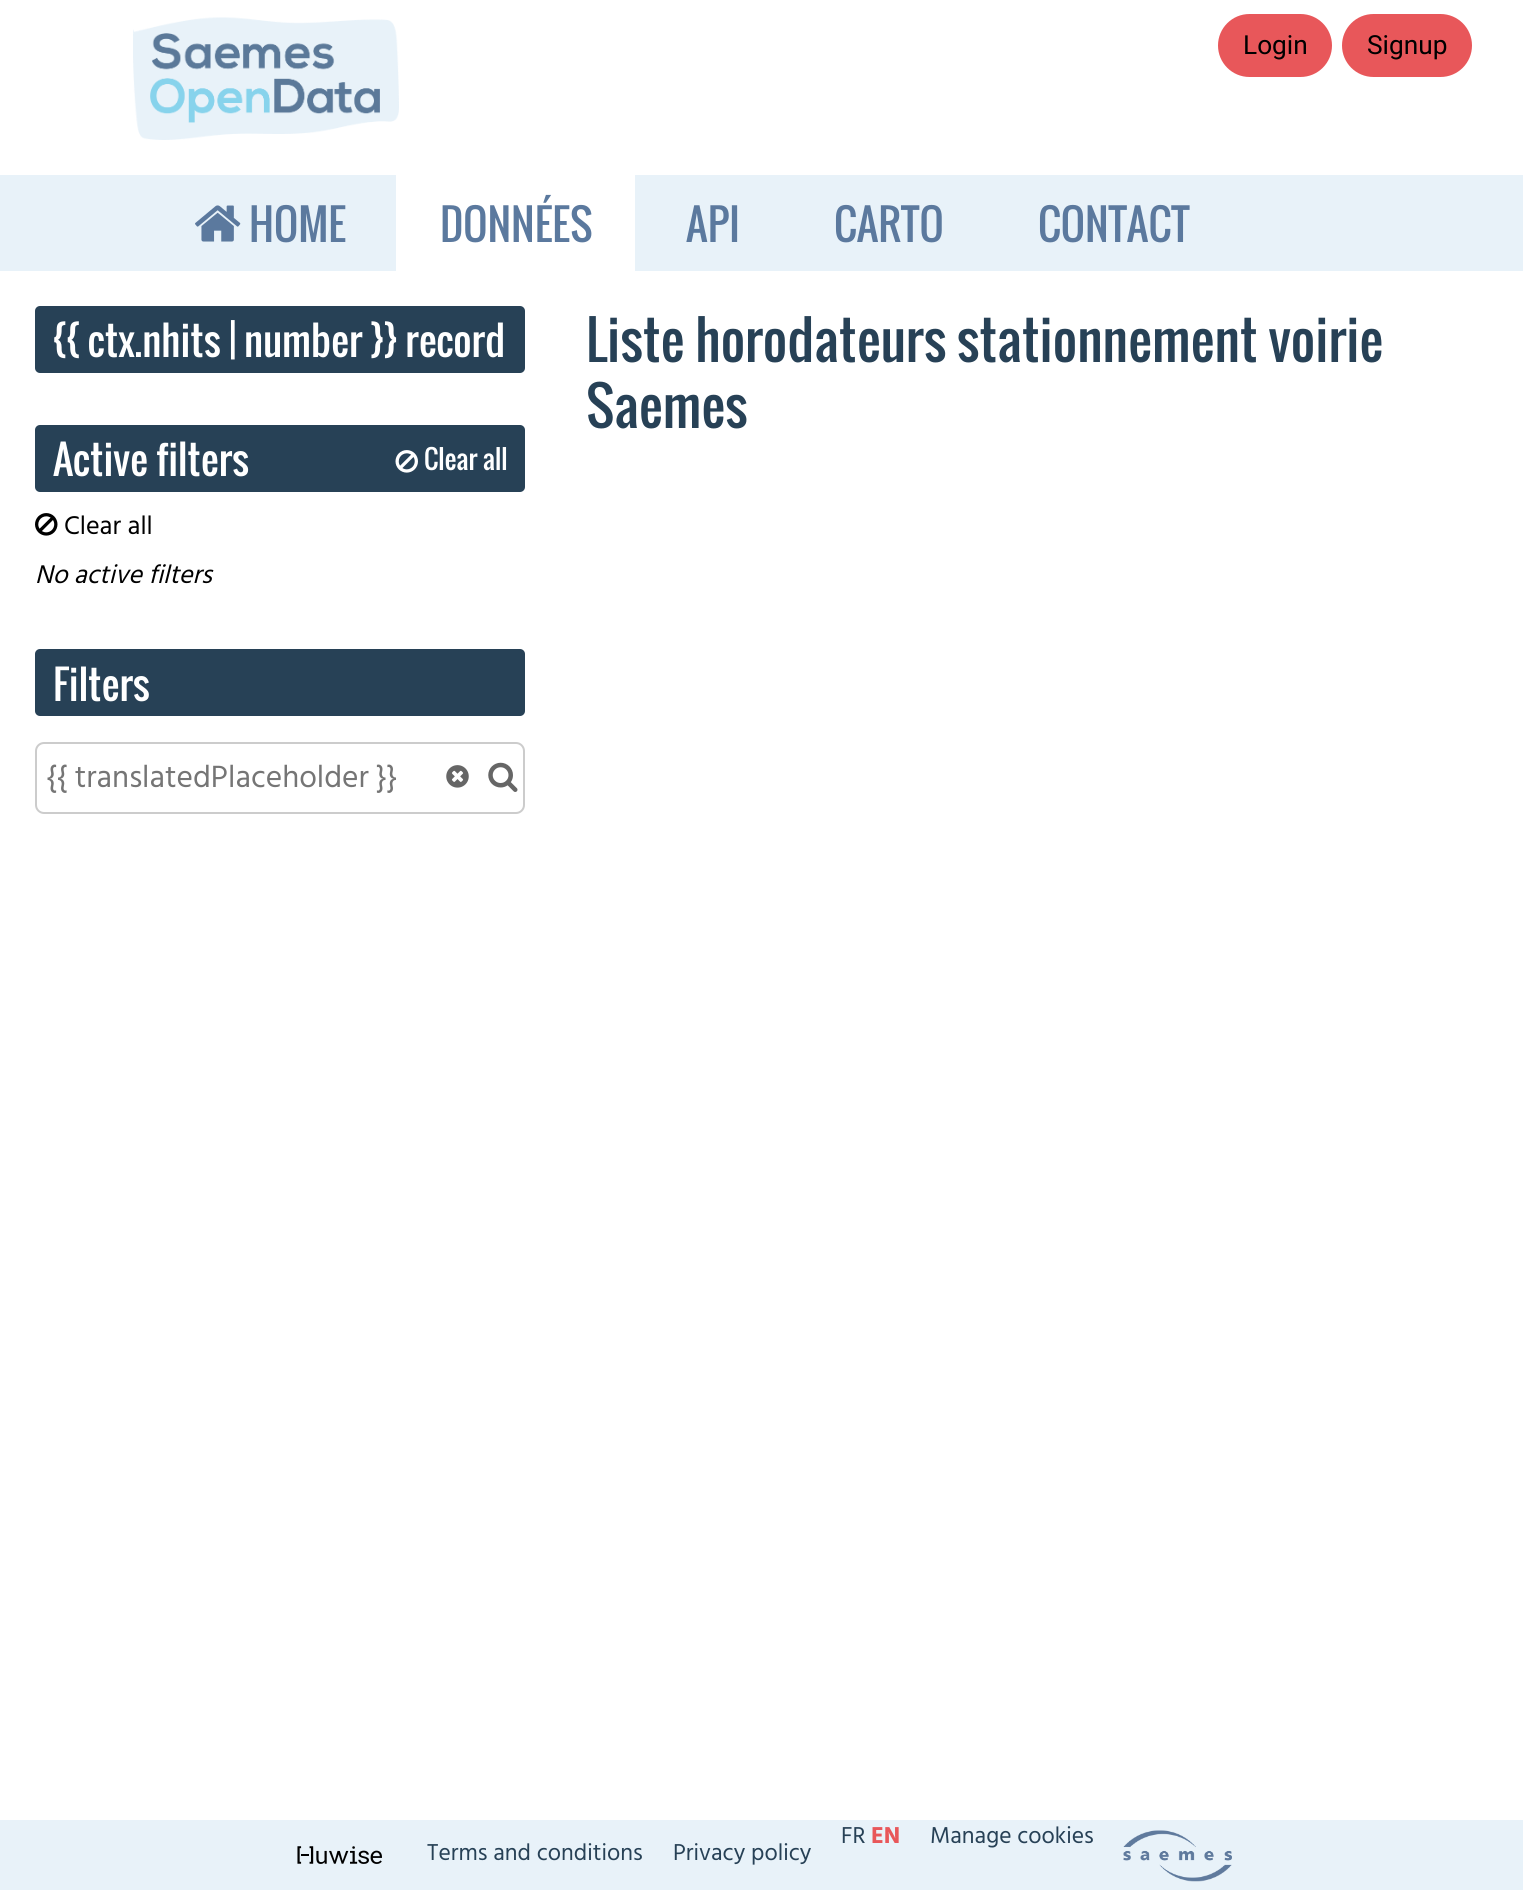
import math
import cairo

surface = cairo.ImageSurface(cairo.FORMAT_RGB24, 1523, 1890)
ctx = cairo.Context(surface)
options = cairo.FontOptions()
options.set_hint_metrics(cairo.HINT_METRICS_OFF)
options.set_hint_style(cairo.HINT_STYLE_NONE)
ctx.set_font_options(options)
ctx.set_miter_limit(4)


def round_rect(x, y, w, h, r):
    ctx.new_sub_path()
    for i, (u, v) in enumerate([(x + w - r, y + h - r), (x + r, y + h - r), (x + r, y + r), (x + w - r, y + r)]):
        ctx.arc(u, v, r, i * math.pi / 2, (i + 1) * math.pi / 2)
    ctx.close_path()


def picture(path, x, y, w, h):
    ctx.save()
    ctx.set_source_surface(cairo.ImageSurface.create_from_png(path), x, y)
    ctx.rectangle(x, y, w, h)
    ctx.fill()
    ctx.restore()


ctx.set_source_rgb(1, 1, 1)
ctx.paint()
picture("img1.png", 133, 17, 266, 123)
ctx.set_source_rgb(0.91, 0.949, 0.976)
ctx.rectangle(0, 175, 1523, 96)
ctx.fill()
ctx.set_source_rgb(0.91, 0.341, 0.353)
round_rect(1218, 14, 114, 63, 31.5)
ctx.fill()
ctx.select_font_face("Roboto")
ctx.set_font_size(26.25)
ctx.set_source_rgb(0, 0, 0)
ctx.move_to(1243, 54)
ctx.show_text("Login")
ctx.set_source_rgb(0.91, 0.341, 0.353)
round_rect(1342, 14, 130, 63, 31.5)
ctx.fill()
ctx.set_source_rgb(0, 0, 0)
ctx.move_to(1367, 54)
ctx.show_text("Signup")
picture("img2.png", 195, 205, 46, 37)
ctx.select_font_face("Oswald")
ctx.set_font_size(42)
ctx.set_source_rgb(0.357, 0.475, 0.62)
ctx.move_to(249, 242)
ctx.show_text("HOME")
ctx.set_source_rgb(1, 1, 1)
ctx.rectangle(396, 175, 239, 96)
ctx.fill()
ctx.set_source_rgb(0.357, 0.475, 0.62)
ctx.move_to(440, 242)
ctx.show_text("DONNÉES")
ctx.move_to(686, 242)
ctx.show_text("API")
ctx.move_to(834, 242)
ctx.show_text("CARTO")
ctx.move_to(1038, 242)
ctx.show_text("CONTACT")
ctx.set_source_rgb(0.153, 0.255, 0.337)
round_rect(35, 306, 490, 67, 5)
ctx.fill()
ctx.set_font_size(39.4)
ctx.set_source_rgb(1, 1, 1)
ctx.move_to(53, 357)
ctx.show_text("{{ ctx.nhits | number }} record")
ctx.set_source_rgb(0.153, 0.255, 0.337)
round_rect(35, 425, 490, 67, 5)
ctx.fill()
ctx.set_source_rgb(1, 1, 1)
ctx.move_to(53, 476)
ctx.show_text("Active filters")
picture("img3.png", 395, 450, 23, 23)
ctx.set_font_size(26.25)
ctx.move_to(424, 470)
ctx.show_text("Clear all")
picture("img4.png", 35, 513, 23, 23)
ctx.select_font_face("Hind")
ctx.set_source_rgb(0, 0, 0)
ctx.move_to(64, 534)
ctx.show_text("Clear all")
ctx.select_font_face("Hind", cairo.FONT_SLANT_ITALIC)
ctx.move_to(35, 583)
ctx.show_text("No active filters")
ctx.set_source_rgb(0.153, 0.255, 0.337)
round_rect(35, 649, 490, 67, 5)
ctx.fill()
ctx.select_font_face("Oswald")
ctx.set_font_size(39.4)
ctx.set_source_rgb(1, 1, 1)
ctx.move_to(53, 701)
ctx.show_text("Filters")
round_rect(36, 743, 488, 70, 8)
ctx.set_source_rgb(0.8, 0.8, 0.8)
ctx.stroke()
ctx.select_font_face("Hind")
ctx.set_font_size(31.5)
ctx.set_source_rgb(0.459, 0.459, 0.459)
ctx.move_to(46, 787)
ctx.show_text("{{ translatedPlaceholder }}")
picture("img5.png", 446, 765, 23, 23)
picture("img6.png", 488, 762, 30, 30)
ctx.select_font_face("Oswald")
ctx.set_font_size(52.5)
ctx.set_source_rgb(0.153, 0.255, 0.337)
ctx.move_to(586, 362)
ctx.show_text("Liste horodateurs stationnement voirie")
ctx.move_to(586, 428)
ctx.show_text("Saemes")
ctx.set_source_rgb(0.91, 0.949, 0.976)
ctx.rectangle(0, 1820, 1523, 70)
ctx.fill()
picture("img7.png", 297, 1846, 85, 18)
ctx.select_font_face("Hind")
ctx.set_font_size(23.6)
ctx.set_source_rgb(0.153, 0.255, 0.337)
ctx.move_to(427, 1860)
ctx.show_text("Terms and conditions")
ctx.move_to(673, 1860)
ctx.show_text("Privacy policy")
ctx.move_to(841, 1843)
ctx.show_text("FR")
ctx.select_font_face("Hind", cairo.FONT_SLANT_NORMAL, cairo.FONT_WEIGHT_BOLD)
ctx.set_source_rgb(0.91, 0.341, 0.353)
ctx.move_to(871, 1843)
ctx.show_text("EN")
ctx.select_font_face("Hind")
ctx.set_source_rgb(0.153, 0.255, 0.337)
ctx.move_to(930, 1843)
ctx.show_text("Manage cookies")
picture("img8.png", 1123, 1830, 109, 52)
surface.write_to_png("page.png")
